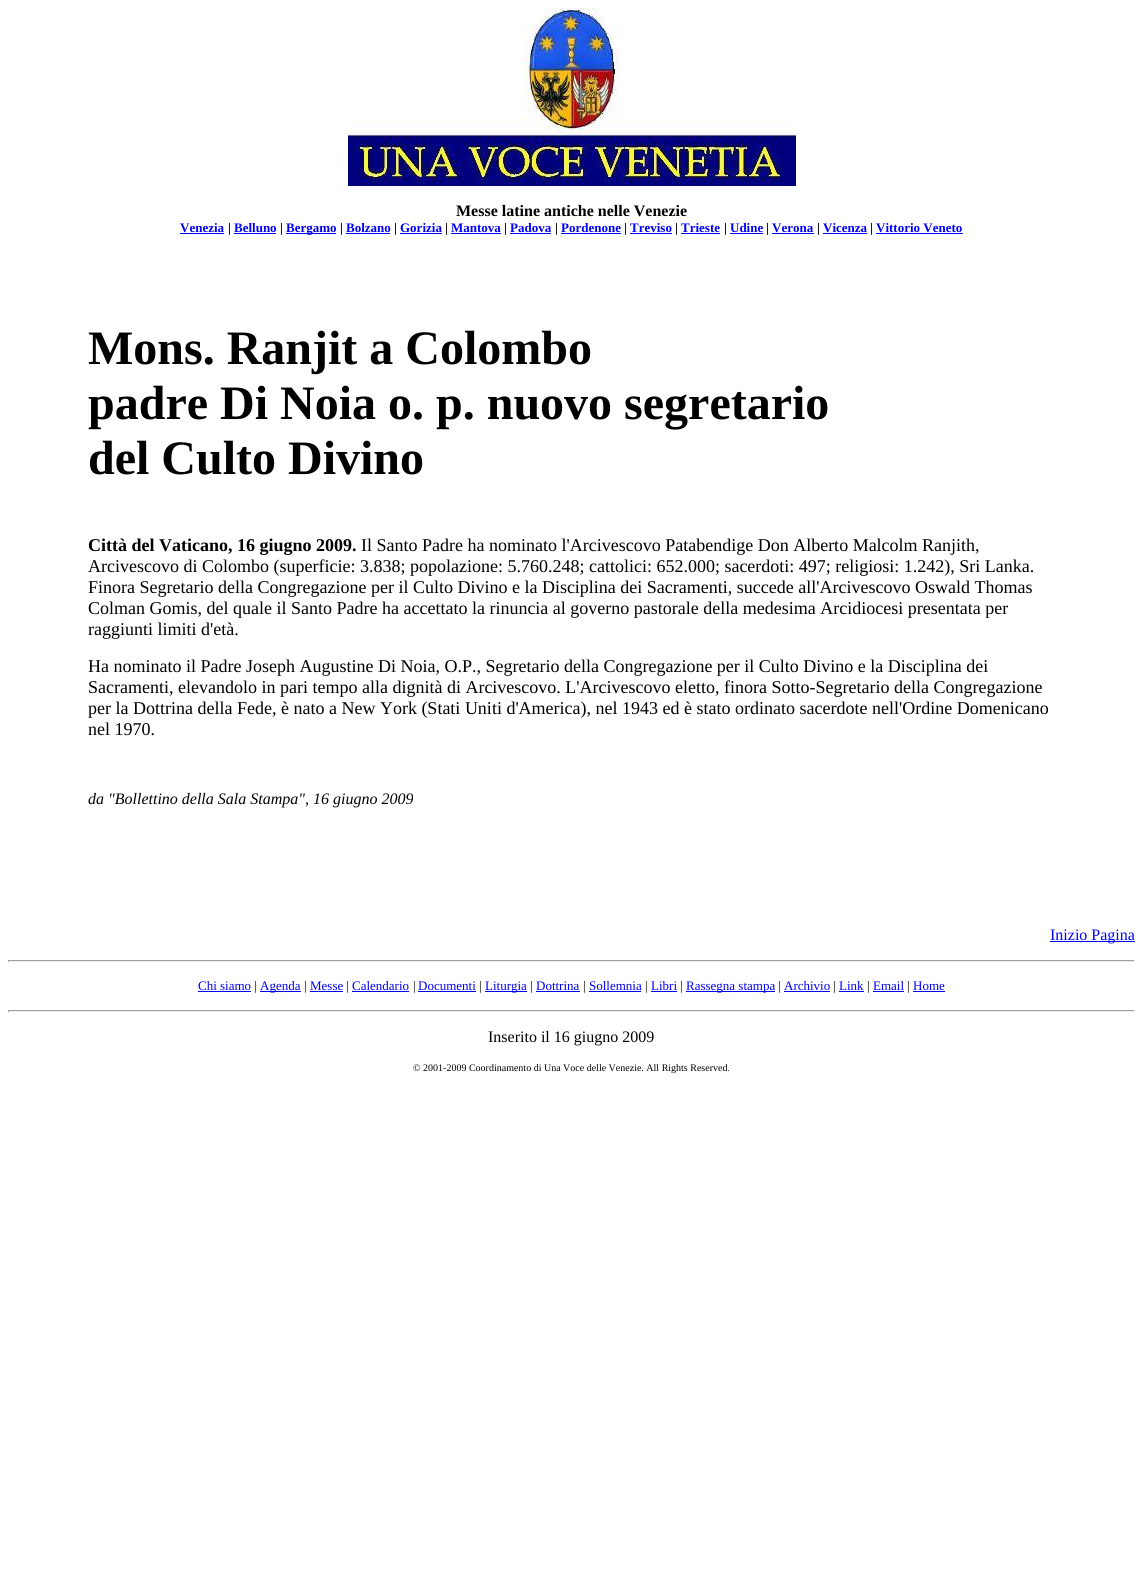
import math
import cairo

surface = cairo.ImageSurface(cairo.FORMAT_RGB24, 1143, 1580)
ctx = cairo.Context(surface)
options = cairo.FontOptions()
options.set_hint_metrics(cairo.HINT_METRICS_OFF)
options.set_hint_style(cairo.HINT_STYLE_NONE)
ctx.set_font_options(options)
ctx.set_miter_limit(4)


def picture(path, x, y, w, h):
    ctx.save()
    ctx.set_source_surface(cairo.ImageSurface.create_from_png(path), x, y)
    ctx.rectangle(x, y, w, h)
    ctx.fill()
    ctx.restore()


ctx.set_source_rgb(1, 1, 1)
ctx.paint()
picture("img1.png", 348, 8, 448, 178)
ctx.select_font_face("Liberation Serif", cairo.FONT_SLANT_NORMAL, cairo.FONT_WEIGHT_BOLD)
ctx.set_font_size(16)
ctx.set_source_rgb(0, 0, 0)
ctx.move_to(456, 216)
ctx.show_text("Messe latine antiche nelle Venezie")
ctx.set_font_size(13)
ctx.set_source_rgb(0, 0, 1)
ctx.move_to(180, 232)
ctx.show_text("Venezia")
ctx.set_source_rgb(0, 0, 0.933)
ctx.rectangle(180, 233, 44, 1)
ctx.fill()
ctx.set_source_rgb(0, 0, 0)
ctx.move_to(228, 232)
ctx.show_text("|")
ctx.set_source_rgb(0, 0, 1)
ctx.move_to(234, 232)
ctx.show_text("Belluno")
ctx.set_source_rgb(0, 0, 0.933)
ctx.rectangle(234, 233, 42, 1)
ctx.fill()
ctx.set_source_rgb(0, 0, 0)
ctx.move_to(280, 232)
ctx.show_text("|")
ctx.set_source_rgb(0, 0, 0.933)
ctx.rectangle(286, 233, 50, 1)
ctx.fill()
ctx.move_to(286, 232)
ctx.show_text("Bergamo")
ctx.set_source_rgb(0, 0, 0)
ctx.move_to(340, 232)
ctx.show_text("|")
ctx.set_source_rgb(0, 0, 1)
ctx.move_to(346, 232)
ctx.show_text("Bolzano")
ctx.set_source_rgb(0, 0, 0.933)
ctx.rectangle(346, 233, 44, 1)
ctx.fill()
ctx.set_source_rgb(0, 0, 0)
ctx.move_to(394, 232)
ctx.show_text("|")
ctx.set_source_rgb(0, 0, 1)
ctx.move_to(400, 232)
ctx.show_text("Gorizia")
ctx.set_source_rgb(0, 0, 0.933)
ctx.rectangle(400, 233, 42, 1)
ctx.fill()
ctx.set_source_rgb(0, 0, 0)
ctx.move_to(445, 232)
ctx.show_text("|")
ctx.set_source_rgb(0, 0, 1)
ctx.move_to(451, 232)
ctx.show_text("Mantova")
ctx.set_source_rgb(0, 0, 0.933)
ctx.rectangle(451, 233, 50, 1)
ctx.fill()
ctx.set_source_rgb(0, 0, 0)
ctx.move_to(504, 232)
ctx.show_text("|")
ctx.set_source_rgb(0, 0, 1)
ctx.move_to(510, 232)
ctx.show_text("Padova")
ctx.set_source_rgb(0, 0, 0.933)
ctx.rectangle(510, 233, 41, 1)
ctx.fill()
ctx.set_source_rgb(0, 0, 0)
ctx.move_to(555, 232)
ctx.show_text("|")
ctx.set_source_rgb(0, 0, 1)
ctx.move_to(561, 232)
ctx.show_text("Pordenone")
ctx.set_source_rgb(0, 0, 0.933)
ctx.rectangle(561, 233, 60, 1)
ctx.fill()
ctx.set_source_rgb(0, 0, 0)
ctx.move_to(624, 232)
ctx.show_text("|")
ctx.set_source_rgb(0, 0, 1)
ctx.move_to(630, 232)
ctx.show_text("Treviso")
ctx.set_source_rgb(0, 0, 0.933)
ctx.rectangle(630, 233, 42, 1)
ctx.fill()
ctx.set_source_rgb(0, 0, 0)
ctx.move_to(675, 232)
ctx.show_text("|")
ctx.set_source_rgb(0, 0, 1)
ctx.move_to(681, 232)
ctx.show_text("Trieste")
ctx.set_source_rgb(0, 0, 0.933)
ctx.rectangle(681, 233, 39, 1)
ctx.fill()
ctx.set_source_rgb(0, 0, 0)
ctx.move_to(724, 232)
ctx.show_text("|")
ctx.set_source_rgb(0, 0, 1)
ctx.move_to(730, 232)
ctx.show_text("Udine")
ctx.set_source_rgb(0, 0, 0.933)
ctx.rectangle(730, 233, 33, 1)
ctx.fill()
ctx.set_source_rgb(0, 0, 0)
ctx.move_to(766, 232)
ctx.show_text("|")
ctx.set_source_rgb(0, 0, 1)
ctx.move_to(772, 232)
ctx.show_text("Verona")
ctx.set_source_rgb(0, 0, 0.933)
ctx.rectangle(772, 233, 42, 1)
ctx.fill()
ctx.set_source_rgb(0, 0, 0)
ctx.move_to(817, 232)
ctx.show_text("|")
ctx.set_source_rgb(0, 0, 1)
ctx.move_to(823, 232)
ctx.show_text("Vicenza")
ctx.set_source_rgb(0, 0, 0.933)
ctx.rectangle(823, 233, 44, 1)
ctx.fill()
ctx.set_source_rgb(0, 0, 0)
ctx.move_to(870, 232)
ctx.show_text("|")
ctx.set_source_rgb(0, 0, 1)
ctx.move_to(876, 232)
ctx.show_text("Vittorio Veneto")
ctx.set_source_rgb(0, 0, 0.933)
ctx.rectangle(876, 233, 87, 1)
ctx.fill()
ctx.set_font_size(48)
ctx.set_source_rgb(0, 0, 0)
ctx.move_to(88, 364)
ctx.show_text("Mons. Ranjit a Colombo")
ctx.move_to(88, 419)
ctx.show_text("padre Di Noia o. p. nuovo segretario")
ctx.move_to(88, 474)
ctx.show_text("del Culto Divino")
ctx.set_font_size(18)
ctx.move_to(88, 551)
ctx.show_text("Città del Vaticano, 16 giugno 2009.")
ctx.select_font_face("Liberation Serif")
ctx.move_to(361, 551)
ctx.show_text("Il Santo Padre ha nominato l'Arcivescovo Patabendige Don Alberto Malcolm Ranjith,")
ctx.move_to(88, 572)
ctx.show_text("Arcivescovo di Colombo (superficie: 3.838; popolazione: 5.760.248; cattolici: 652.000; sacerdoti: 497; religiosi: 1.242), Sri Lanka.")
ctx.move_to(88, 593)
ctx.show_text("Finora Segretario della Congregazione per il Culto Divino e la Disciplina dei Sacramenti, succede all'Arcivescovo Oswald Thomas")
ctx.move_to(88, 614)
ctx.show_text("Colman Gomis, del quale il Santo Padre ha accettato la rinuncia al governo pastorale della medesima Arcidiocesi presentata per")
ctx.move_to(88, 635)
ctx.show_text("raggiunti limiti d'età.")
ctx.move_to(88, 672)
ctx.show_text("Ha nominato il Padre Joseph Augustine Di Noia, O.P., Segretario della Congregazione per il Culto Divino e la Disciplina dei")
ctx.move_to(88, 693)
ctx.show_text("Sacramenti, elevandolo in pari tempo alla dignità di Arcivescovo. L'Arcivescovo eletto, finora Sotto-Segretario della Congregazione")
ctx.move_to(88, 714)
ctx.show_text("per la Dottrina della Fede, è nato a New York (Stati Uniti d'America), nel 1943 ed è stato ordinato sacerdote nell'Ordine Domenicano")
ctx.move_to(88, 735)
ctx.show_text("nel 1970.")
ctx.select_font_face("Liberation Serif", cairo.FONT_SLANT_ITALIC)
ctx.set_font_size(16)
ctx.move_to(88, 804)
ctx.show_text("da \"Bollettino della Sala Stampa\", 16 giugno 2009")
ctx.set_source_rgb(0, 0, 0.933)
ctx.rectangle(1050, 941, 85, 1)
ctx.fill()
ctx.select_font_face("Liberation Serif")
ctx.set_source_rgb(0, 0, 1)
ctx.move_to(1050, 940)
ctx.show_text("Inizio Pagina")
ctx.set_source_rgb(0.624, 0.624, 0.624)
ctx.rectangle(8, 960, 1127, 1)
ctx.fill()
ctx.set_source_rgb(0.933, 0.933, 0.933)
ctx.rectangle(1134, 960, 1, 2)
ctx.fill()
ctx.rectangle(8, 961, 1127, 1)
ctx.fill()
ctx.set_source_rgb(0.624, 0.624, 0.624)
ctx.rectangle(8, 960, 1, 2)
ctx.fill()
ctx.set_font_size(13)
ctx.set_source_rgb(0, 0, 1)
ctx.move_to(198, 990)
ctx.show_text("Chi siamo")
ctx.set_source_rgb(0, 0, 0.933)
ctx.rectangle(198, 991, 53, 1)
ctx.fill()
ctx.set_source_rgb(0, 0, 0)
ctx.move_to(254, 990)
ctx.show_text("|")
ctx.set_source_rgb(0, 0, 0.933)
ctx.rectangle(260, 991, 41, 1)
ctx.fill()
ctx.set_source_rgb(0, 0, 1)
ctx.move_to(260, 990)
ctx.show_text("Agenda")
ctx.set_source_rgb(0, 0, 0)
ctx.move_to(304, 990)
ctx.show_text("|")
ctx.set_source_rgb(0, 0, 1)
ctx.move_to(310, 990)
ctx.show_text("Messe")
ctx.set_source_rgb(0, 0, 0.933)
ctx.rectangle(310, 991, 33, 1)
ctx.fill()
ctx.set_source_rgb(0, 0, 0)
ctx.move_to(346, 990)
ctx.show_text("|")
ctx.set_source_rgb(0, 0, 1)
ctx.move_to(352, 990)
ctx.show_text("Calendario")
ctx.set_source_rgb(0, 0, 0.933)
ctx.rectangle(352, 991, 57, 1)
ctx.fill()
ctx.set_source_rgb(0, 0, 0)
ctx.move_to(413, 990)
ctx.show_text("|")
ctx.set_source_rgb(0, 0, 1)
ctx.move_to(418, 990)
ctx.show_text("Documenti")
ctx.set_source_rgb(0, 0, 0.933)
ctx.rectangle(418, 991, 58, 1)
ctx.fill()
ctx.set_source_rgb(0, 0, 0)
ctx.move_to(479, 990)
ctx.show_text("|")
ctx.set_source_rgb(0, 0, 0.933)
ctx.rectangle(485, 991, 42, 1)
ctx.fill()
ctx.set_source_rgb(0, 0, 1)
ctx.move_to(485, 990)
ctx.show_text("Liturgia")
ctx.set_source_rgb(0, 0, 0)
ctx.move_to(530, 990)
ctx.show_text("|")
ctx.set_source_rgb(0, 0, 1)
ctx.move_to(536, 990)
ctx.show_text("Dottrina")
ctx.set_source_rgb(0, 0, 0.933)
ctx.rectangle(536, 991, 44, 1)
ctx.fill()
ctx.set_source_rgb(0, 0, 0)
ctx.move_to(583, 990)
ctx.show_text("|")
ctx.set_source_rgb(0, 0, 1)
ctx.move_to(589, 990)
ctx.show_text("Sollemnia")
ctx.set_source_rgb(0, 0, 0.933)
ctx.rectangle(589, 991, 52, 1)
ctx.fill()
ctx.set_source_rgb(0, 0, 0)
ctx.move_to(645, 990)
ctx.show_text("|")
ctx.set_source_rgb(0, 0, 1)
ctx.move_to(651, 990)
ctx.show_text("Libri")
ctx.set_source_rgb(0, 0, 0.933)
ctx.rectangle(651, 991, 26, 1)
ctx.fill()
ctx.set_source_rgb(0, 0, 0)
ctx.move_to(680, 990)
ctx.show_text("|")
ctx.set_source_rgb(0, 0, 0.933)
ctx.rectangle(686, 991, 89, 1)
ctx.fill()
ctx.set_source_rgb(0, 0, 1)
ctx.move_to(686, 990)
ctx.show_text("Rassegna stampa")
ctx.set_source_rgb(0, 0, 0)
ctx.move_to(778, 990)
ctx.show_text("|")
ctx.set_source_rgb(0, 0, 1)
ctx.move_to(784, 990)
ctx.show_text("Archivio")
ctx.set_source_rgb(0, 0, 0.933)
ctx.rectangle(784, 991, 46, 1)
ctx.fill()
ctx.set_source_rgb(0, 0, 0)
ctx.move_to(833, 990)
ctx.show_text("|")
ctx.set_source_rgb(0, 0, 1)
ctx.move_to(839, 990)
ctx.show_text("Link")
ctx.set_source_rgb(0, 0, 0.933)
ctx.rectangle(839, 991, 25, 1)
ctx.fill()
ctx.set_source_rgb(0, 0, 0)
ctx.move_to(867, 990)
ctx.show_text("|")
ctx.set_source_rgb(0, 0, 1)
ctx.move_to(873, 990)
ctx.show_text("Email")
ctx.set_source_rgb(0, 0, 0.933)
ctx.rectangle(873, 991, 31, 1)
ctx.fill()
ctx.set_source_rgb(0, 0, 0)
ctx.move_to(907, 990)
ctx.show_text("|")
ctx.set_source_rgb(0, 0, 1)
ctx.move_to(913, 990)
ctx.show_text("Home")
ctx.set_source_rgb(0, 0, 0.933)
ctx.rectangle(913, 991, 32, 1)
ctx.fill()
ctx.set_source_rgb(0.624, 0.624, 0.624)
ctx.rectangle(8, 1010, 1127, 1)
ctx.fill()
ctx.set_source_rgb(0.933, 0.933, 0.933)
ctx.rectangle(1134, 1010, 1, 2)
ctx.fill()
ctx.rectangle(8, 1011, 1127, 1)
ctx.fill()
ctx.set_source_rgb(0.624, 0.624, 0.624)
ctx.rectangle(8, 1010, 1, 2)
ctx.fill()
ctx.set_font_size(16)
ctx.set_source_rgb(0, 0, 0)
ctx.move_to(488, 1042)
ctx.show_text("Inserito il 16 giugno 2009")
ctx.set_font_size(10)
ctx.move_to(413, 1071)
ctx.show_text("© 2001-2009 Coordinamento di Una Voce delle Venezie. All Rights Reserved.")
surface.write_to_png("page.png")
